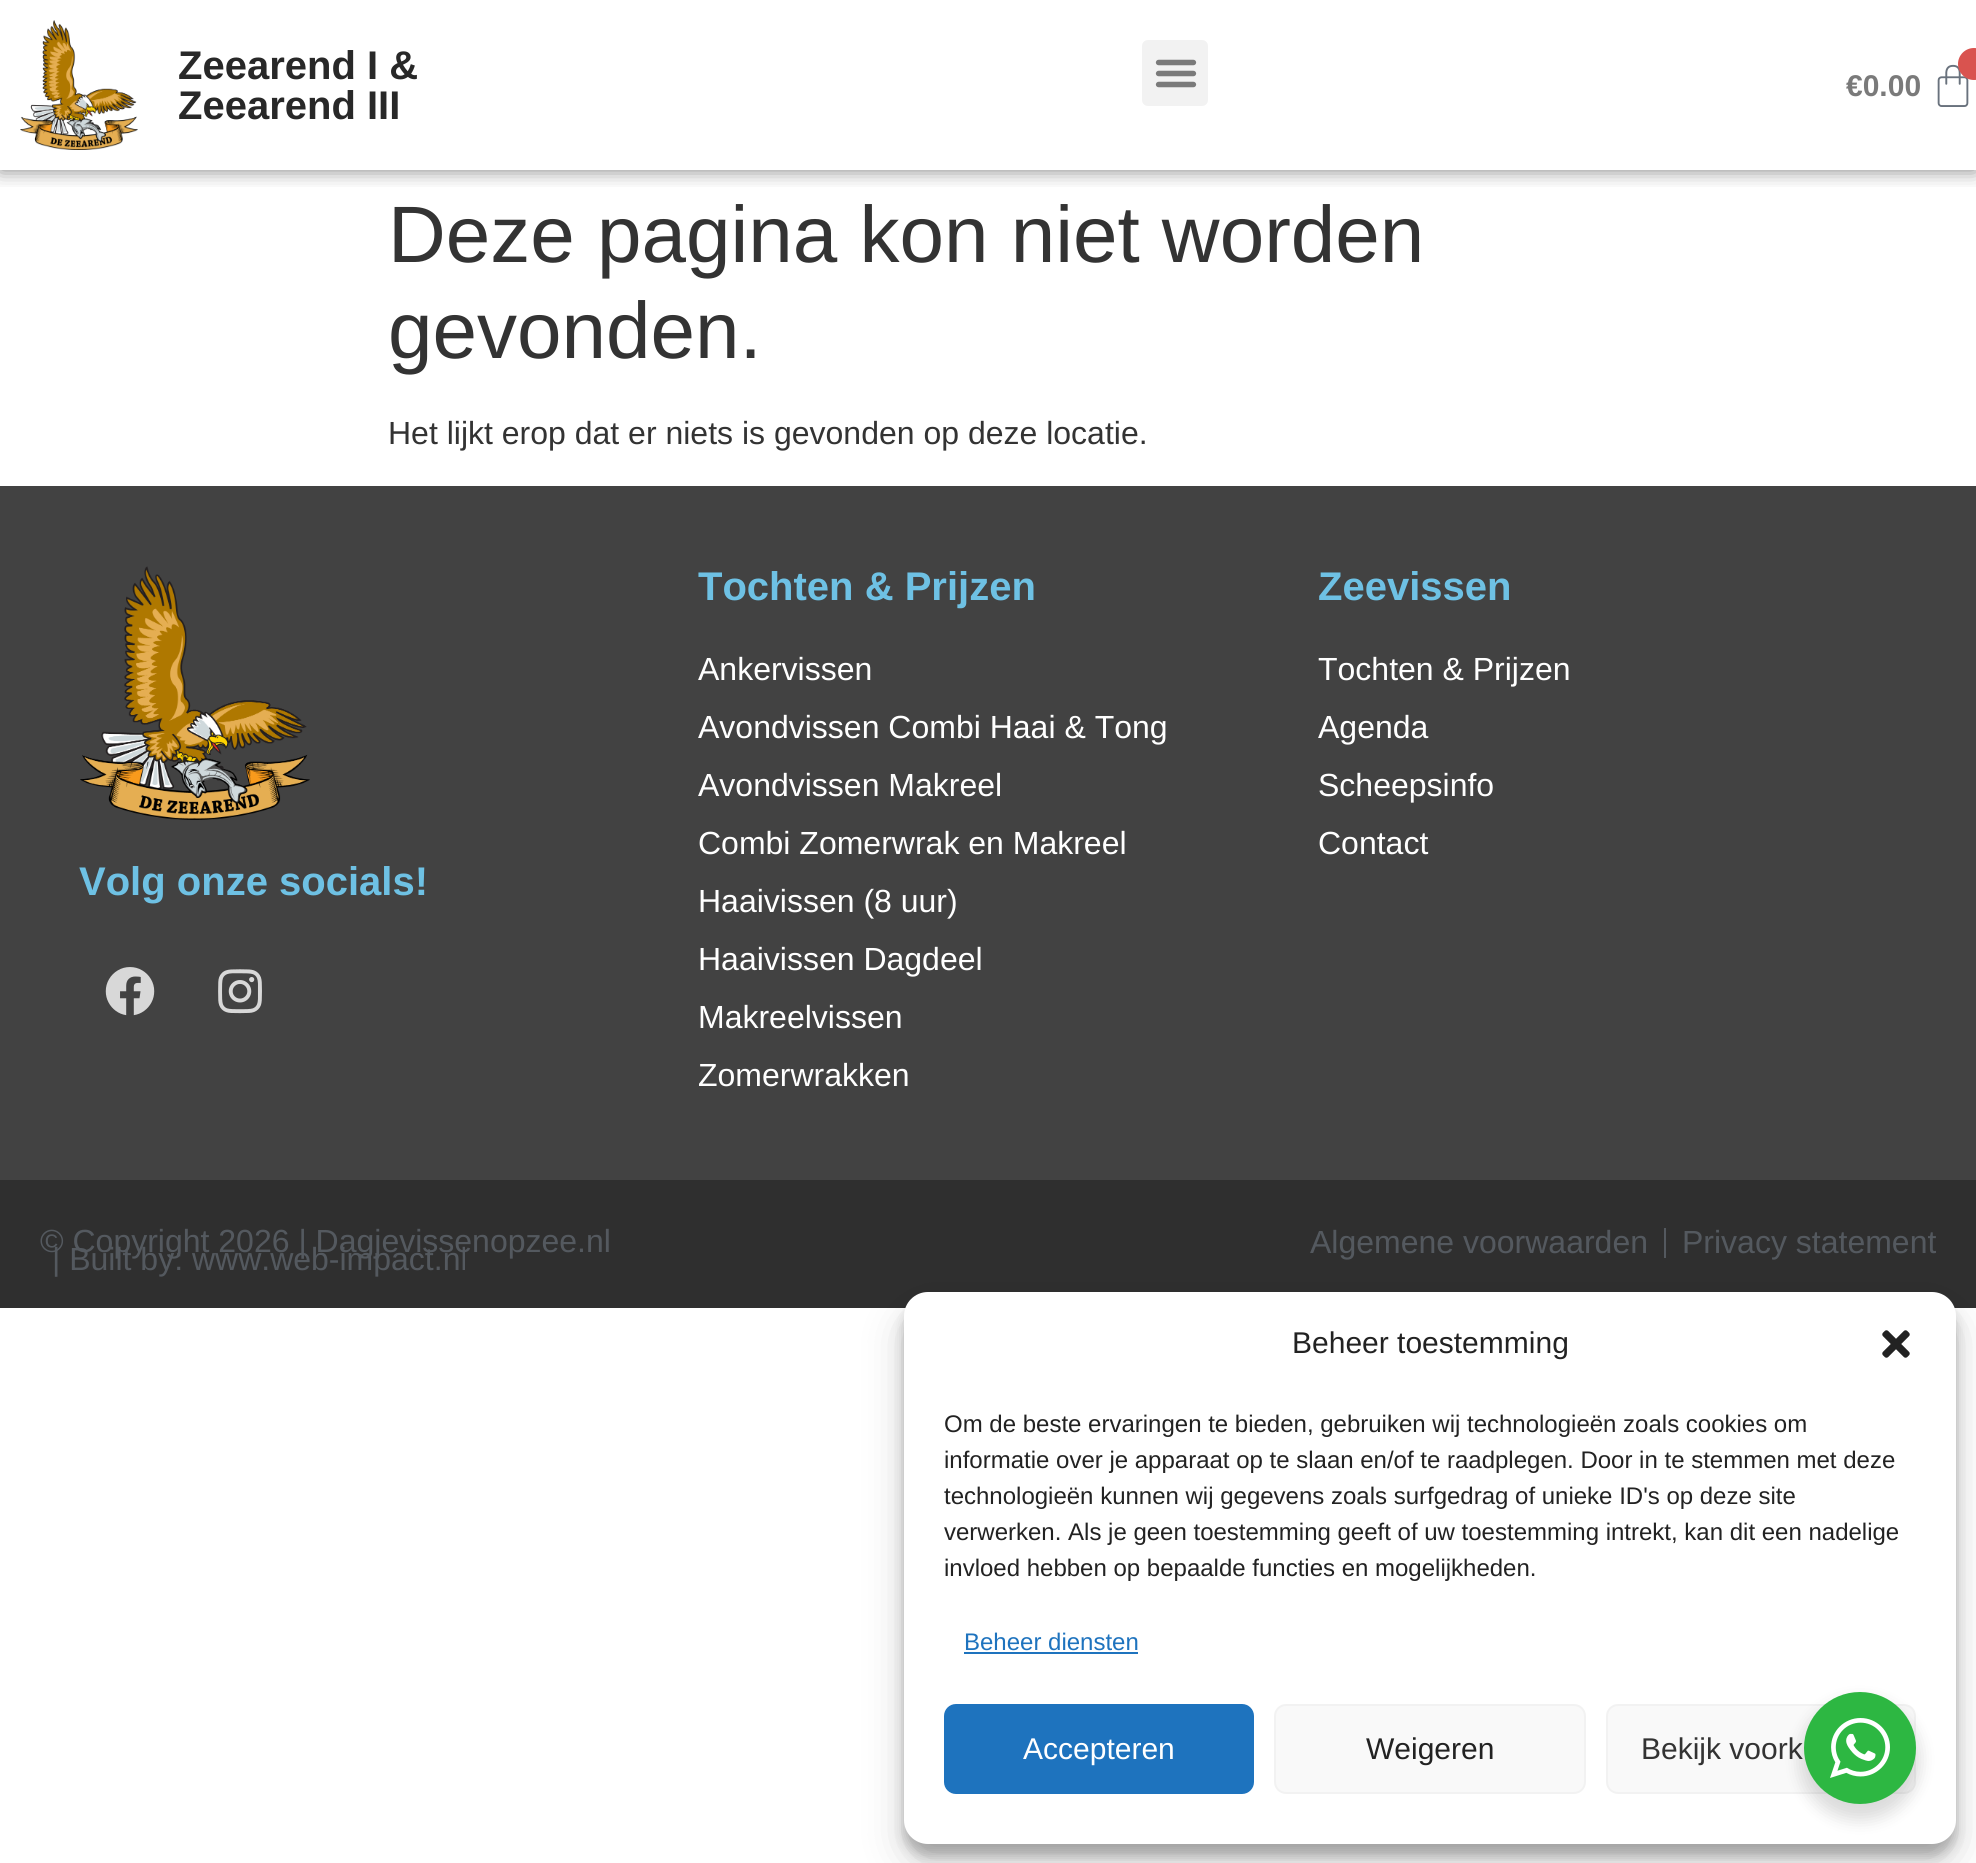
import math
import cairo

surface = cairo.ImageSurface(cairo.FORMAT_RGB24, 1976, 1863)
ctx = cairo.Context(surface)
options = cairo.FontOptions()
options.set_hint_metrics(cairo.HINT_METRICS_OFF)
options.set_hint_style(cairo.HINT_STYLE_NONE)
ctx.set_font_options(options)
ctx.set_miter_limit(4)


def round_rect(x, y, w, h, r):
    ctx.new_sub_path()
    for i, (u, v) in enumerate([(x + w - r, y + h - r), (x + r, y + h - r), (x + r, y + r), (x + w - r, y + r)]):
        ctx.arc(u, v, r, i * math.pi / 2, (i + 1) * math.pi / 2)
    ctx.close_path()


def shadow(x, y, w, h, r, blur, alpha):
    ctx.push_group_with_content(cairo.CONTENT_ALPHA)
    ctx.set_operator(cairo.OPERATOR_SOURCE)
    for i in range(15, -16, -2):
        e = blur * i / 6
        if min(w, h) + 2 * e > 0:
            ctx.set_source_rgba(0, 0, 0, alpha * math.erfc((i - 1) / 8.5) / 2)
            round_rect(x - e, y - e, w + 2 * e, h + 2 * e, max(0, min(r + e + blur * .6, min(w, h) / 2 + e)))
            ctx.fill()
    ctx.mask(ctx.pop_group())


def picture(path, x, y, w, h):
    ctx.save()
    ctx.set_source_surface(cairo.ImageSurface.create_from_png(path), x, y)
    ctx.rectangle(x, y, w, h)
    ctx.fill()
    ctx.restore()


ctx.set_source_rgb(1, 1, 1)
ctx.paint()
ctx.save()
ctx.rectangle(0, 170, 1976, 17)
ctx.clip()
ctx.set_source_rgb(0, 0, 0)
shadow(0, 0, 1976, 170, 0, 10, 0.5)
ctx.restore()
picture("img1.png", 20, 20, 118, 130)
ctx.select_font_face("Liberation Sans", cairo.FONT_SLANT_NORMAL, cairo.FONT_WEIGHT_BOLD)
ctx.set_font_size(40)
ctx.set_source_rgb(0.157, 0.157, 0.157)
ctx.move_to(178, 79)
ctx.show_text("Zeearend I &")
ctx.move_to(178, 119)
ctx.show_text("Zeearend III")
ctx.set_source_rgb(0.949, 0.949, 0.949)
round_rect(1142, 40, 66, 66, 6)
ctx.fill()
picture("img2.png", 1155, 59, 42, 29)
ctx.set_font_size(30)
ctx.set_source_rgb(0.478, 0.478, 0.478)
ctx.move_to(1846, 96)
ctx.show_text("€0.00")
picture("img3.png", 1937, 64, 32, 43)
ctx.set_source_rgb(0.851, 0.325, 0.31)
ctx.arc(1974, 64, 16, 0, 2 * math.pi)
ctx.fill()
ctx.select_font_face("Liberation Sans")
ctx.set_font_size(80)
ctx.set_source_rgb(0.2, 0.2, 0.2)
ctx.move_to(388, 262)
ctx.show_text("Deze pagina kon niet worden")
ctx.move_to(388, 358)
ctx.show_text("gevonden.")
ctx.set_font_size(32)
ctx.move_to(388, 444)
ctx.show_text("Het lijkt erop dat er niets is gevonden op deze locatie.")
ctx.set_source_rgb(0.259, 0.259, 0.259)
ctx.rectangle(0, 486, 1976, 694)
ctx.fill()
ctx.select_font_face("Liberation Sans", cairo.FONT_SLANT_NORMAL, cairo.FONT_WEIGHT_BOLD)
ctx.set_font_size(40)
ctx.set_source_rgb(0.431, 0.757, 0.894)
ctx.move_to(698, 600)
ctx.show_text("Tochten & Prijzen")
ctx.select_font_face("Liberation Sans")
ctx.set_font_size(32)
ctx.set_source_rgb(1, 1, 1)
ctx.move_to(698, 680)
ctx.show_text("Ankervissen")
ctx.move_to(698, 738)
ctx.show_text("Avondvissen Combi Haai & Tong")
ctx.move_to(698, 796)
ctx.show_text("Avondvissen Makreel")
ctx.move_to(698, 854)
ctx.show_text("Combi Zomerwrak en Makreel")
ctx.move_to(698, 912)
ctx.show_text("Haaivissen (8 uur)")
ctx.move_to(698, 970)
ctx.show_text("Haaivissen Dagdeel")
ctx.move_to(698, 1028)
ctx.show_text("Makreelvissen")
ctx.move_to(698, 1086)
ctx.show_text("Zomerwrakken")
ctx.select_font_face("Liberation Sans", cairo.FONT_SLANT_NORMAL, cairo.FONT_WEIGHT_BOLD)
ctx.set_font_size(40)
ctx.set_source_rgb(0.431, 0.757, 0.894)
ctx.move_to(1318, 600)
ctx.show_text("Zeevissen")
ctx.select_font_face("Liberation Sans")
ctx.set_font_size(32)
ctx.set_source_rgb(1, 1, 1)
ctx.move_to(1318, 680)
ctx.show_text("Tochten & Prijzen")
ctx.move_to(1318, 738)
ctx.show_text("Agenda")
ctx.move_to(1318, 796)
ctx.show_text("Scheepsinfo")
ctx.move_to(1318, 854)
ctx.show_text("Contact")
picture("img4.png", 80, 566, 230, 254)
ctx.select_font_face("Liberation Sans", cairo.FONT_SLANT_NORMAL, cairo.FONT_WEIGHT_BOLD)
ctx.set_font_size(40)
ctx.set_source_rgb(0.431, 0.757, 0.894)
ctx.move_to(79, 895)
ctx.show_text("Volg onze socials!")
picture("img5.png", 105, 967, 50, 49)
picture("img6.png", 218, 969, 44, 45)
ctx.set_source_rgb(0.184, 0.184, 0.184)
ctx.rectangle(0, 1180, 1976, 128)
ctx.fill()
ctx.select_font_face("Liberation Sans")
ctx.set_font_size(32)
ctx.set_source_rgb(0.329, 0.349, 0.373)
ctx.move_to(40, 1252)
ctx.show_text("© Copyright 2026 | Dagjevissenopzee.nl")
ctx.move_to(52, 1270)
ctx.show_text("| Built by: www.web-impact.nl")
ctx.move_to(1310, 1253)
ctx.show_text("Algemene voorwaarden")
ctx.rectangle(1664, 1228, 2, 30)
ctx.fill()
ctx.move_to(1682, 1253)
ctx.show_text("Privacy statement")
ctx.set_source_rgb(0, 0, 0)
shadow(904, 1304, 1052, 552, 24, 6, 0.23)
shadow(904, 1312, 1052, 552, 24, 20, 0.19)
ctx.set_source_rgb(1, 1, 1)
round_rect(904, 1292, 1052, 552, 24)
ctx.fill()
ctx.set_font_size(30)
ctx.set_source_rgb(0.133, 0.133, 0.133)
ctx.move_to(1292, 1353)
ctx.show_text("Beheer toestemming")
picture("img7.png", 1882, 1330, 28, 28)
ctx.set_font_size(24)
ctx.move_to(944, 1432)
ctx.show_text("Om de beste ervaringen te bieden, gebruiken wij technologieën zoals cookies om")
ctx.move_to(944, 1468)
ctx.show_text("informatie over je apparaat op te slaan en/of te raadplegen. Door in te stemmen met deze")
ctx.move_to(944, 1504)
ctx.show_text("technologieën kunnen wij gegevens zoals surfgedrag of unieke ID's op deze site")
ctx.move_to(944, 1540)
ctx.show_text("verwerken. Als je geen toestemming geeft of uw toestemming intrekt, kan dit een nadelige")
ctx.move_to(944, 1576)
ctx.show_text("invloed hebben op bepaalde functies en mogelijkheden.")
ctx.set_source_rgb(0.118, 0.451, 0.745)
ctx.move_to(964, 1650)
ctx.show_text("Beheer diensten")
ctx.rectangle(964, 1652, 174, 2)
ctx.fill()
round_rect(945, 1705, 308, 88, 11)
ctx.fill_preserve()
ctx.stroke()
ctx.set_font_size(30)
ctx.set_source_rgb(1, 1, 1)
ctx.move_to(1023, 1759)
ctx.show_text("Accepteren")
ctx.set_source_rgb(0.976, 0.976, 0.976)
round_rect(1275, 1705, 310, 88, 11)
ctx.fill_preserve()
ctx.set_source_rgb(0.949, 0.949, 0.949)
ctx.stroke()
ctx.set_source_rgb(0.133, 0.133, 0.133)
ctx.move_to(1366, 1759)
ctx.show_text("Weigeren")
ctx.set_source_rgb(0.976, 0.976, 0.976)
round_rect(1607, 1705, 308, 88, 11)
ctx.fill_preserve()
ctx.set_source_rgb(0.949, 0.949, 0.949)
ctx.stroke()
ctx.set_source_rgb(0.2, 0.2, 0.2)
ctx.move_to(1641, 1759)
ctx.show_text("Bekijk voork")
ctx.set_source_rgb(0, 0, 0)
shadow(1800, 1700, 120, 120, 60, 8, 0.14)
ctx.set_source_rgb(0.176, 0.718, 0.259)
ctx.arc(1860, 1748, 56, 0, 2 * math.pi)
ctx.fill()
picture("img8.png", 1830, 1718, 60, 60)
surface.write_to_png("page.png")
